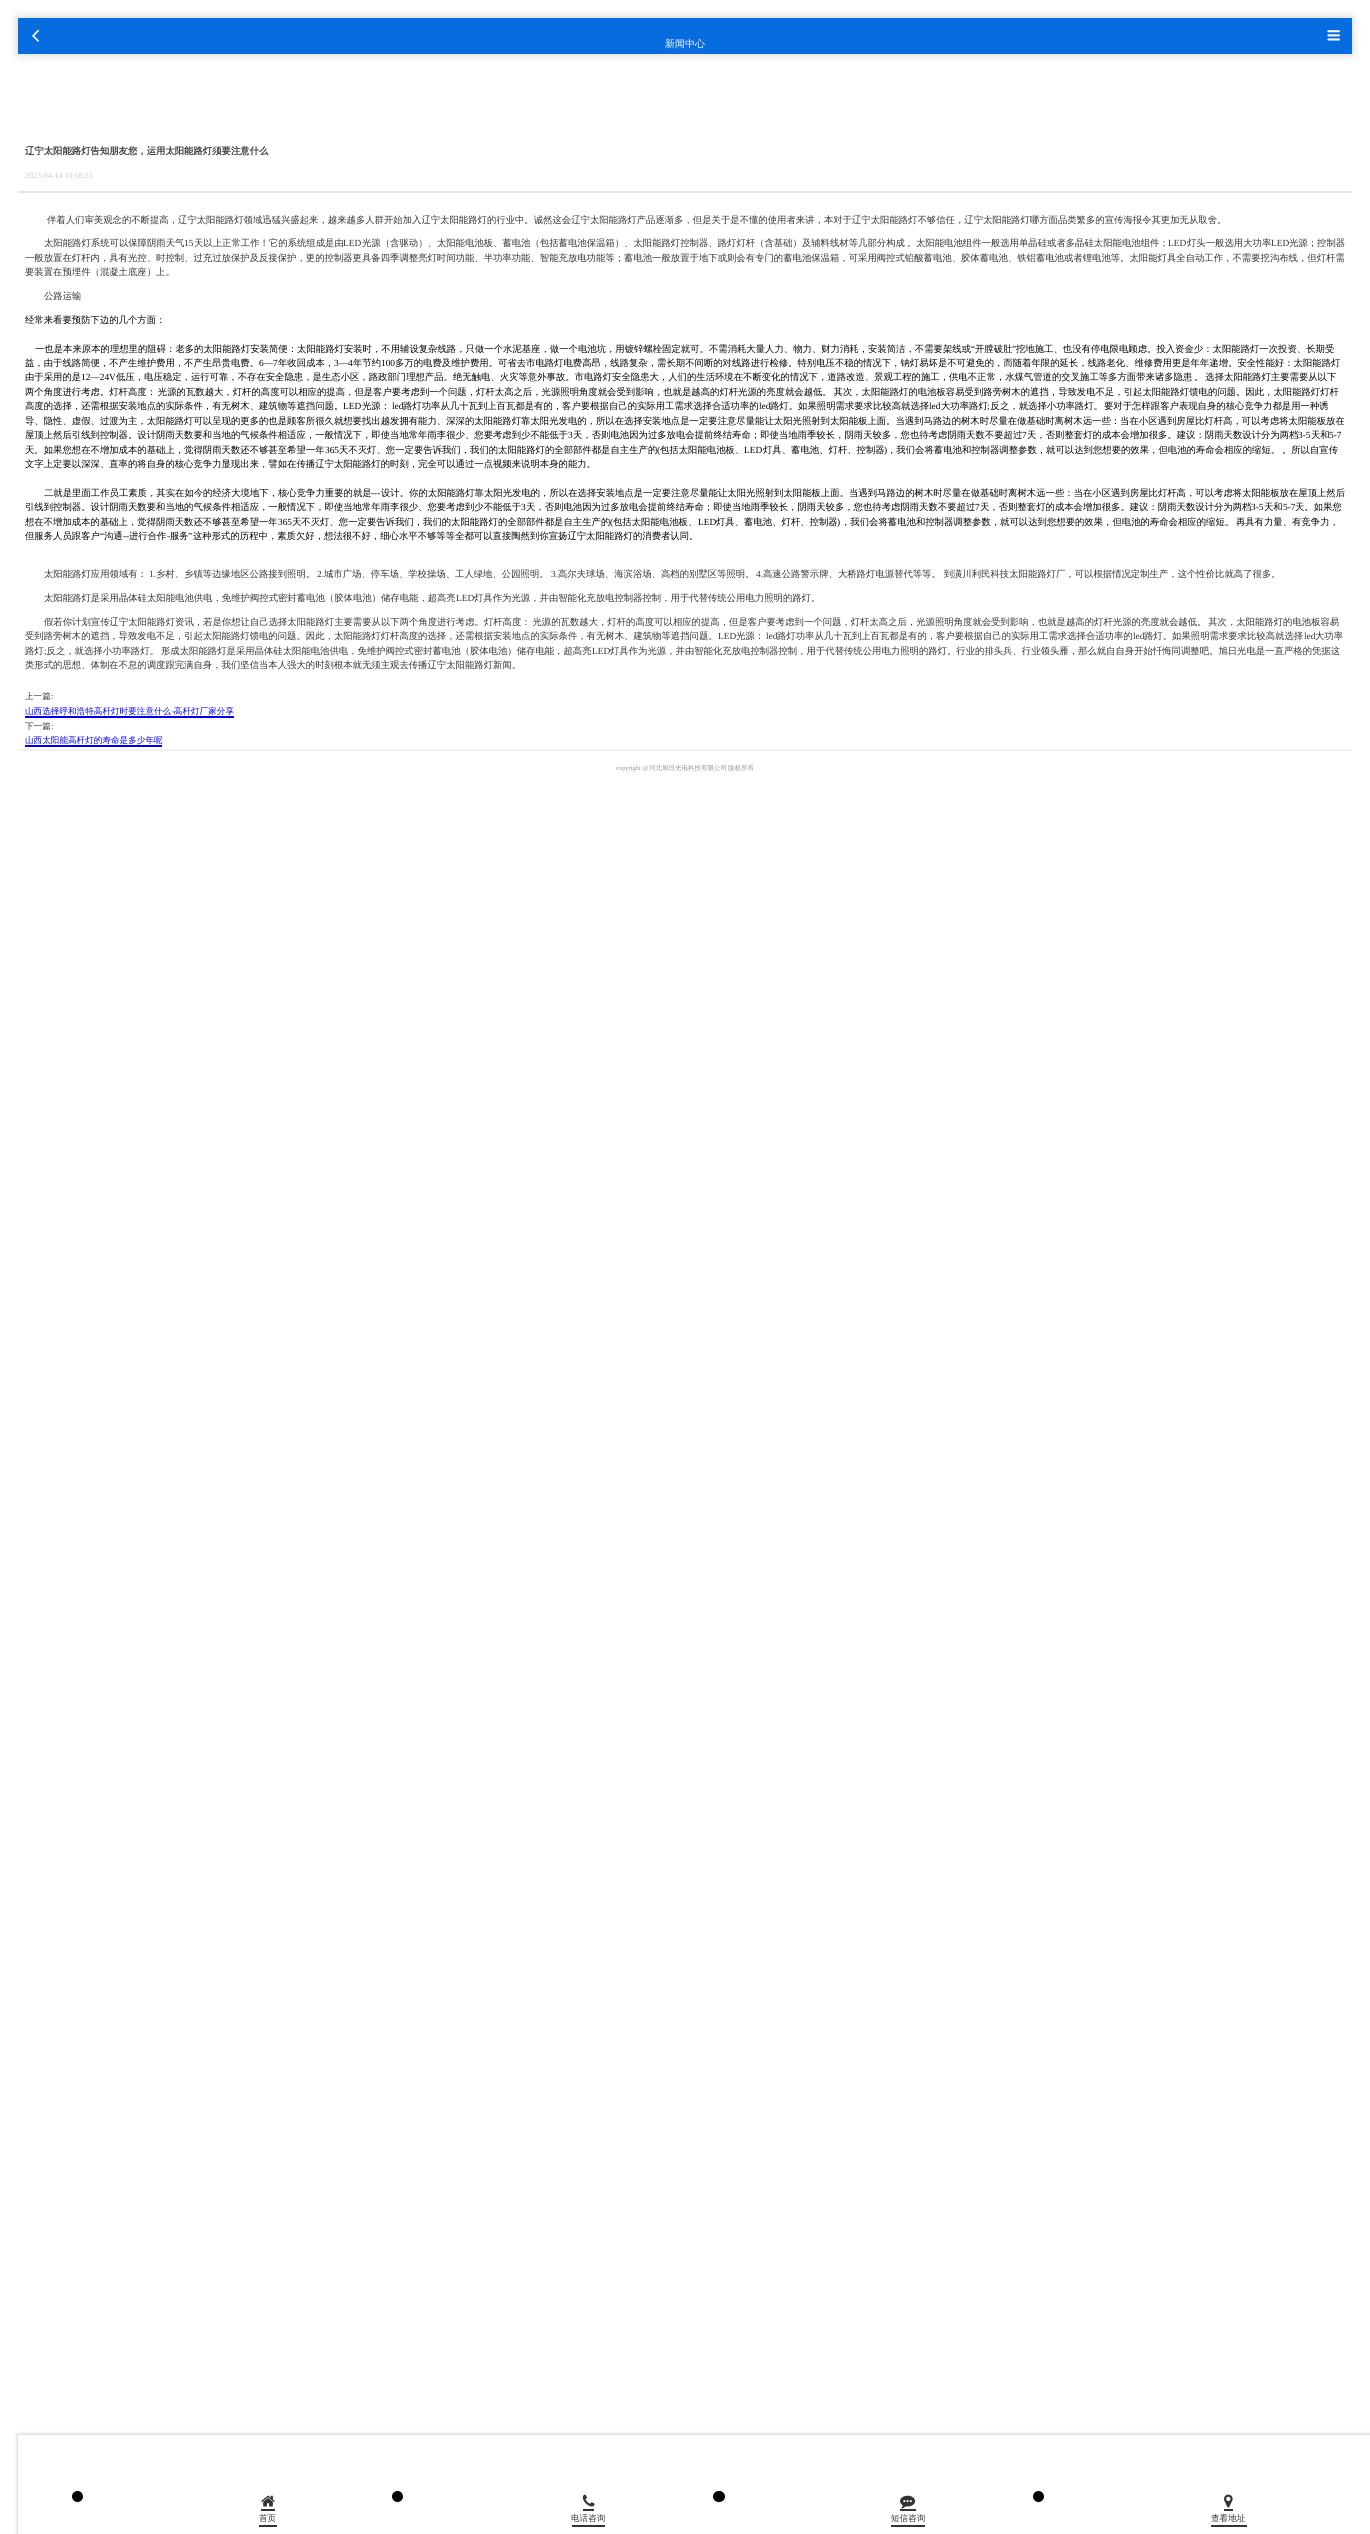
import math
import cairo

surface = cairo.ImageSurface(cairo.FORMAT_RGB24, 1370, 2534)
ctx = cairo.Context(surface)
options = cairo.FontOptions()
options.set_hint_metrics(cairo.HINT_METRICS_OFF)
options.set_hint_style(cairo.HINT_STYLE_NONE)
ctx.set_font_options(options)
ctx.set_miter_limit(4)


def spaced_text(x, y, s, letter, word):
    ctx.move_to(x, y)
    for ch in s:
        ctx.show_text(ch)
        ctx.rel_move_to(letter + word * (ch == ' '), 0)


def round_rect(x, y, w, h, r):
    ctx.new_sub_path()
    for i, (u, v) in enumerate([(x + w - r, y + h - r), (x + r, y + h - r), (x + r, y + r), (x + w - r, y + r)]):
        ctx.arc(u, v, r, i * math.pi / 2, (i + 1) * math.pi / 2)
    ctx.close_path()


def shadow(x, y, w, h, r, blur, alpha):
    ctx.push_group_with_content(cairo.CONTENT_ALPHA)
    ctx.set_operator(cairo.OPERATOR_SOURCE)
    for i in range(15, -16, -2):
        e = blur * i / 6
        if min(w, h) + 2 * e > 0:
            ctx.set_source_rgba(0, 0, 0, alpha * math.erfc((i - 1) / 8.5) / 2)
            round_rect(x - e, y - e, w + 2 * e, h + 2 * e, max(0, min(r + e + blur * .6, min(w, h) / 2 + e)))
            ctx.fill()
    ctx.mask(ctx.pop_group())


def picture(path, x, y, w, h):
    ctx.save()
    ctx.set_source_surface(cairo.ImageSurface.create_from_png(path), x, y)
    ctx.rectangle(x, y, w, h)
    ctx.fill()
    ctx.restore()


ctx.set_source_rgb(1, 1, 1)
ctx.paint()
ctx.set_source_rgb(0.8, 0.8, 0.8)
shadow(18, 18, 1334, 36, 0, 4.5, 1)
ctx.set_source_rgb(0.027, 0.424, 0.878)
ctx.rectangle(18, 18, 1334, 36)
ctx.fill()
picture("img1.png", 32, 29, 7, 13)
picture("img2.png", 1327, 30, 13, 11)
ctx.select_font_face("WenQuanYi Zen Hei Medium")
ctx.set_font_size(10)
ctx.set_source_rgb(1, 1, 1)
ctx.move_to(665, 47)
ctx.show_text("新闻中心")
ctx.set_source_rgb(0.898, 0.898, 0.898)
ctx.rectangle(18, 191, 1334, 2)
ctx.fill()
ctx.select_font_face("WenQuanYi Zen Hei", cairo.FONT_SLANT_NORMAL, cairo.FONT_WEIGHT_BOLD)
ctx.set_font_size(9.36)
ctx.set_source_rgb(0.2, 0.2, 0.2)
ctx.move_to(25, 154)
ctx.show_text("辽宁太阳能路灯告知朋友您，运用太阳能路灯须要注意什么")
ctx.select_font_face("Liberation Serif")
ctx.set_font_size(8)
ctx.set_source_rgb(0.8, 0.8, 0.8)
ctx.move_to(25, 178)
ctx.show_text("2023-04-14 10:58:25")
ctx.select_font_face("WenQuanYi Zen Hei Medium")
ctx.set_font_size(9.36)
ctx.set_source_rgb(0.2, 0.2, 0.2)
ctx.move_to(47, 223)
ctx.show_text("伴着人们审美观念的不断提高，辽宁太阳能路灯领域迅猛兴盛起来，越来越多人群开始加入辽宁太阳能路灯的行业中。诚然这会辽宁太阳能路灯产品逐渐多，但是关于是不懂的使用者来讲，本对于辽宁太阳能路灯不够信任，辽宁太阳能路灯哪方面品类繁多的宣传海报令其更加无从取舍。")
ctx.move_to(44, 246)
ctx.show_text("太阳能路灯系统可以保障阴雨天气")
ctx.select_font_face("Liberation Serif")
ctx.move_to(184, 246)
ctx.show_text("15")
ctx.select_font_face("WenQuanYi Zen Hei Medium")
ctx.move_to(194, 246)
ctx.show_text("天以上正常工作！它的系统组成是由")
ctx.select_font_face("Liberation Serif")
ctx.move_to(343, 246)
ctx.show_text("LED")
ctx.select_font_face("WenQuanYi Zen Hei Medium")
spaced_text(362, 246, "光源（含驱动）、太阳能电池板、蓄电池（包括蓄电池保温箱）、太阳能路灯控制器、路灯灯杆（含基础）及辅料线材等几部分构成 。太阳能电池组件一般选用单晶硅或者多晶硅太阳能电池组件；", 0, -1)
ctx.select_font_face("Liberation Serif")
ctx.move_to(1168, 246)
ctx.show_text("LED")
ctx.select_font_face("WenQuanYi Zen Hei Medium")
ctx.move_to(1187, 246)
ctx.show_text("灯头一般选用大功率")
ctx.select_font_face("Liberation Serif")
ctx.move_to(1271, 246)
ctx.show_text("LED")
ctx.select_font_face("WenQuanYi Zen Hei Medium")
ctx.move_to(1289, 246)
ctx.show_text("光源；控制器")
ctx.move_to(25, 261)
ctx.show_text("一般放置在灯杆内，具有光控、时控制、过充过放保护及反接保护，更的控制器更具备四季调整亮灯时间功能、半功率功能、智能充放电功能等；蓄电池一般放置于地下或则会有专门的蓄电池保温箱，可采用阀控式铅酸蓄电池、胶体蓄电池、铁铝蓄电池或者锂电池等。太阳能灯具全自动工作，不需要挖沟布线，但灯杆需")
ctx.move_to(25, 275)
ctx.show_text("要装置在预埋件（混凝土底座）上。")
ctx.move_to(44, 299)
ctx.show_text("公路运输")
ctx.set_source_rgb(0, 0, 0)
ctx.move_to(25, 323)
ctx.show_text("经常来看要预防下边的几个方面：")
ctx.move_to(35, 352)
ctx.show_text("一也是本来原本的理想里的阻碍：老多的太阳能路灯安装简便：太阳能路灯安装时，不用辅设复杂线路，只做一个水泥基座，做一个电池坑，用镀锌螺栓固定就可。不需消耗大量人力、物力、财力消耗，安装简洁，不需要架线或")
ctx.select_font_face("Liberation Serif")
ctx.move_to(971, 352)
ctx.show_text("“")
ctx.select_font_face("WenQuanYi Zen Hei Medium")
ctx.move_to(975, 352)
ctx.show_text("开膛破肚")
ctx.select_font_face("Liberation Serif")
ctx.move_to(1012, 352)
ctx.show_text("”")
ctx.select_font_face("WenQuanYi Zen Hei Medium")
ctx.move_to(1016, 352)
ctx.show_text("挖地施工、也没有停电限电顾虑。投入资金少：太阳能路灯一次投资、长期受")
ctx.move_to(25, 366)
ctx.show_text("益，由于线路简便，不产生维护费用，不产生昂贵电费。")
ctx.select_font_face("Liberation Serif")
ctx.move_to(259, 366)
ctx.show_text("6—7")
ctx.select_font_face("WenQuanYi Zen Hei Medium")
ctx.move_to(278, 366)
ctx.show_text("年收回成本，")
ctx.select_font_face("Liberation Serif")
ctx.move_to(334, 366)
ctx.show_text("3—4")
ctx.select_font_face("WenQuanYi Zen Hei Medium")
ctx.move_to(353, 366)
ctx.show_text("年节约")
ctx.select_font_face("Liberation Serif")
ctx.move_to(381, 366)
ctx.show_text("100")
ctx.select_font_face("WenQuanYi Zen Hei Medium")
ctx.move_to(395, 366)
ctx.show_text("多万的电费及维护费用。可省去市电路灯电费高昂，线路复杂，需长期不间断的对线路进行检修。特别电压不稳的情况下，钠灯易坏是不可避免的，而随着年限的延长，线路老化、维修费用更是年年递增。安全性能好：太阳能路灯")
ctx.move_to(25, 380)
ctx.show_text("由于采用的是")
ctx.select_font_face("Liberation Serif")
ctx.move_to(81, 380)
ctx.show_text("12—24V")
ctx.select_font_face("WenQuanYi Zen Hei Medium")
spaced_text(116, 380, "低压，电压稳定，运行可靠，不存在安全隐患，是生态小区，路政部门理想产品。绝无触电、火灾等意外事故。市电路灯安全隐患大，人们的生活环境在不断变化的情况下，道路改造、景观工程的施工，供电不正常，水煤气管道的交叉施工等多方面带来诸多隐患 。 选择太阳能路灯主要需要从以下", 0, -1)
spaced_text(25, 395, "两个角度进行考虑。灯杆高度： 光源的瓦数越大，灯杆的高度可以相应的提高，但是客户要考虑到一个问题，灯杆太高之后，光源照明角度就会受到影响，也就是越高的灯杆光源的亮度就会越低。 其次，太阳能路灯的电池板容易受到路旁树木的遮挡，导致发电不足，引起太阳能路灯馈电的问题。因此，太阳能路灯灯杆", 0, -1)
ctx.move_to(25, 409)
ctx.show_text("高度的选择，还需根据安装地点的实际条件，有无树木、建筑物等遮挡问题。")
ctx.select_font_face("Liberation Serif")
ctx.move_to(343, 409)
ctx.show_text("LED")
ctx.select_font_face("WenQuanYi Zen Hei Medium")
ctx.move_to(362, 409)
ctx.show_text("光源：")
ctx.select_font_face("Liberation Serif")
ctx.move_to(392, 409)
ctx.show_text("led")
ctx.select_font_face("WenQuanYi Zen Hei Medium")
ctx.move_to(403, 409)
ctx.show_text("路灯功率从几十瓦到上百瓦都是有的，客户要根据自己的实际用工需求选择合适功率的")
ctx.select_font_face("Liberation Serif")
ctx.move_to(759, 409)
ctx.show_text("led")
ctx.select_font_face("WenQuanYi Zen Hei Medium")
ctx.move_to(770, 409)
ctx.show_text("路灯。如果照明需求要求比较高就选择")
ctx.select_font_face("Liberation Serif")
ctx.move_to(929, 409)
ctx.show_text("led")
ctx.select_font_face("WenQuanYi Zen Hei Medium")
ctx.move_to(941, 409)
ctx.show_text("大功率路灯 反之，就选择小功率路灯。")
ctx.move_to(1104, 409)
ctx.show_text("要对于怎样跟客户表现自身的核心竞争力都是用一种诱")
ctx.select_font_face("Liberation Serif")
ctx.move_to(987, 409)
ctx.show_text(";")
ctx.select_font_face("WenQuanYi Zen Hei Medium")
ctx.move_to(25, 424)
ctx.show_text("导、隐性、虚假、过渡为主，太阳能路灯可以呈现的更多的也是顾客所很久就想要找出越发拥有能力、深深的太阳能路灯靠太阳光发电的，所以在选择安装地点是一定要注意尽量能让太阳光照射到太阳能板上面。当遇到马路边的树木时尽量在做基础时离树木远一些：当在小区遇到房屋比灯杆高，可以考虑将太阳能板放在")
ctx.move_to(25, 438)
ctx.show_text("屋顶上然后引线到控制器。设计阴雨天数要和当地的气候条件相适应，一般情况下，即使当地常年雨李很少、您要考虑到少不能低于")
ctx.select_font_face("Liberation Serif")
ctx.move_to(568, 438)
ctx.show_text("3")
ctx.select_font_face("WenQuanYi Zen Hei Medium")
ctx.move_to(573, 438)
ctx.show_text("天，否则电池因为过多放电会提前终结寿命；即使当地雨季较长，阴雨天较多，您也待考虑阴雨天数不要超过")
ctx.select_font_face("Liberation Serif")
ctx.move_to(1022, 438)
ctx.show_text("7")
ctx.select_font_face("WenQuanYi Zen Hei Medium")
ctx.move_to(1027, 438)
ctx.show_text("天，否则整套灯的成本会增加很多。建议：阴雨天数设计分为两档")
ctx.select_font_face("Liberation Serif")
ctx.move_to(1298, 438)
ctx.show_text("3-5")
ctx.select_font_face("WenQuanYi Zen Hei Medium")
ctx.move_to(1311, 438)
ctx.show_text("天和")
ctx.select_font_face("Liberation Serif")
ctx.move_to(1329, 438)
ctx.show_text("5-7")
ctx.select_font_face("WenQuanYi Zen Hei Medium")
ctx.move_to(25, 453)
ctx.show_text("天。如果您想在不增加成本的基础上，觉得阴雨天数还不够甚至希望一年")
ctx.select_font_face("Liberation Serif")
ctx.move_to(325, 453)
ctx.show_text("365")
ctx.select_font_face("WenQuanYi Zen Hei Medium")
ctx.move_to(339, 453)
ctx.show_text("天不灭灯、您一定要告诉我们，我们的太阳能路灯的全部部件都是自主生产的")
ctx.select_font_face("Liberation Serif")
ctx.move_to(657, 453)
ctx.show_text("(")
ctx.select_font_face("WenQuanYi Zen Hei Medium")
ctx.move_to(660, 453)
ctx.show_text("包括太阳能电池板、")
ctx.select_font_face("Liberation Serif")
ctx.move_to(744, 453)
ctx.show_text("LED")
ctx.select_font_face("WenQuanYi Zen Hei Medium")
ctx.move_to(763, 453)
ctx.show_text("灯具、蓄电池、灯杆、控制器")
ctx.select_font_face("Liberation Serif")
ctx.move_to(884, 453)
ctx.show_text(")")
ctx.select_font_face("WenQuanYi Zen Hei Medium")
spaced_text(887, 453, "，我们会将蓄电池和控制器调整参数，就可以达到您想要的效果，但电池的寿命会相应的缩短。 。所以自宣传", 0, -1)
ctx.move_to(25, 467)
ctx.show_text("文字上定要以深深、直率的将自身的核心竞争力显现出来，譬如在传播辽宁太阳能路灯的时刻，完全可以通过一点视频来说明本身的能力。")
ctx.move_to(44, 496)
ctx.show_text("二就是里面工作员工素质，其实在如今的经济大境地下，核心竞争力重要的就是")
ctx.select_font_face("Liberation Serif")
ctx.move_to(371, 496)
ctx.show_text("---")
ctx.select_font_face("WenQuanYi Zen Hei Medium")
ctx.move_to(381, 496)
ctx.show_text("设计。你的太阳能路灯靠太阳光发电的，所以在选择安装地点是一定要注意尽量能让太阳光照射到太阳能板上面。当遇到马路边的树木时尽量在做基础时离树木远一些：当在小区遇到房屋比灯杆高，可以考虑将太阳能板放在屋顶上然后")
ctx.move_to(25, 510)
ctx.show_text("引线到控制器。设计阴雨天数要和当地的气候条件相适应，一般情况下，即使当地常年雨李很少、您要考虑到少不能低于")
ctx.select_font_face("Liberation Serif")
ctx.move_to(521, 510)
ctx.show_text("3")
ctx.select_font_face("WenQuanYi Zen Hei Medium")
ctx.move_to(526, 510)
ctx.show_text("天，否则电池因为过多放电会提前终结寿命；即使当地雨季较长，阴雨天较多，您也待考虑阴雨天数不要超过")
ctx.select_font_face("Liberation Serif")
ctx.move_to(975, 510)
ctx.show_text("7")
ctx.select_font_face("WenQuanYi Zen Hei Medium")
ctx.move_to(980, 510)
ctx.show_text("天，否则整套灯的成本会增加很多。建议：阴雨天数设计分为两档")
ctx.select_font_face("Liberation Serif")
ctx.move_to(1251, 510)
ctx.show_text("3-5")
ctx.select_font_face("WenQuanYi Zen Hei Medium")
ctx.move_to(1264, 510)
ctx.show_text("天和")
ctx.select_font_face("Liberation Serif")
ctx.move_to(1283, 510)
ctx.show_text("5-7")
ctx.select_font_face("WenQuanYi Zen Hei Medium")
ctx.move_to(1295, 510)
ctx.show_text("天。如果您")
ctx.move_to(25, 525)
ctx.show_text("想在不增加成本的基础上，觉得阴雨天数还不够甚至希望一年")
ctx.select_font_face("Liberation Serif")
ctx.move_to(278, 525)
ctx.show_text("365")
ctx.select_font_face("WenQuanYi Zen Hei Medium")
ctx.move_to(292, 525)
ctx.show_text("天不灭灯、您一定要告诉我们，我们的太阳能路灯的全部部件都是自主生产的")
ctx.select_font_face("Liberation Serif")
ctx.move_to(610, 525)
ctx.show_text("(")
ctx.select_font_face("WenQuanYi Zen Hei Medium")
ctx.move_to(613, 525)
ctx.show_text("包括太阳能电池板、")
ctx.select_font_face("Liberation Serif")
ctx.move_to(698, 525)
ctx.show_text("LED")
ctx.select_font_face("WenQuanYi Zen Hei Medium")
ctx.move_to(716, 525)
ctx.show_text("灯具、蓄电池、灯杆、控制器")
ctx.select_font_face("Liberation Serif")
ctx.move_to(837, 525)
ctx.show_text(")")
ctx.select_font_face("WenQuanYi Zen Hei Medium")
spaced_text(841, 525, "，我们会将蓄电池和控制器调整参数，就可以达到您想要的效果，但电池的寿命会相应的缩短。 再具有力量、有竞争力，", 0, -1)
ctx.move_to(25, 539)
ctx.show_text("但服务人员跟客户")
ctx.select_font_face("Liberation Serif")
ctx.move_to(100, 539)
ctx.show_text("“")
ctx.select_font_face("WenQuanYi Zen Hei Medium")
ctx.move_to(104, 539)
ctx.show_text("沟通")
ctx.move_to(129, 539)
ctx.show_text("进行合作")
ctx.select_font_face("Liberation Serif")
ctx.move_to(167, 539)
ctx.show_text("-")
ctx.select_font_face("WenQuanYi Zen Hei Medium")
ctx.move_to(170, 539)
ctx.show_text("服务")
ctx.select_font_face("Liberation Serif")
ctx.move_to(188, 539)
ctx.show_text("”")
ctx.select_font_face("WenQuanYi Zen Hei Medium")
ctx.move_to(193, 539)
ctx.show_text("这种形式的历程中，素质欠好，想法很不好，细心水平不够等等全都可以直接陶然到你宣扬辽宁太阳能路灯的消费者认同。")
ctx.select_font_face("Liberation Serif")
ctx.move_to(123, 539)
ctx.show_text("--")
ctx.select_font_face("WenQuanYi Zen Hei Medium")
ctx.set_source_rgb(0.2, 0.2, 0.2)
ctx.move_to(44, 577)
ctx.show_text("太阳能路灯应用领域有：")
ctx.select_font_face("Liberation Serif")
ctx.move_to(149, 577)
ctx.show_text("1.")
ctx.select_font_face("WenQuanYi Zen Hei Medium")
ctx.move_to(156, 577)
ctx.show_text("乡村、乡镇等边缘地区公路接到照明。")
ctx.select_font_face("Liberation Serif")
ctx.move_to(317, 577)
ctx.show_text("2.")
ctx.select_font_face("WenQuanYi Zen Hei Medium")
ctx.move_to(324, 577)
ctx.show_text("城市广场、停车场、学校操场、工人绿地、公园照明。")
ctx.select_font_face("Liberation Serif")
ctx.move_to(551, 577)
ctx.show_text("3.")
ctx.select_font_face("WenQuanYi Zen Hei Medium")
ctx.move_to(558, 577)
ctx.show_text("高尔夫球场、海滨浴场、高档的别墅区等照明。")
ctx.select_font_face("Liberation Serif")
ctx.move_to(756, 577)
ctx.show_text("4.")
ctx.select_font_face("WenQuanYi Zen Hei Medium")
ctx.move_to(763, 577)
ctx.show_text("高速公路警示牌、大桥路灯电源替代等等。 到潢川利民科技太阳能路灯厂，可以根据情况定制生产，这个性价比就高了很多。")
ctx.move_to(44, 601)
ctx.show_text("太阳能路灯是采用晶体硅太阳能电池供电，免维护阀控式密封蓄电池（胶体电池）储存电能，超高亮")
ctx.select_font_face("Liberation Serif")
ctx.move_to(456, 601)
ctx.show_text("LED")
ctx.select_font_face("WenQuanYi Zen Hei Medium")
ctx.move_to(474, 601)
ctx.show_text("灯具作为光源，并由智能化充放电控制器控制，用于代替传统公用电力照明的路灯。")
spaced_text(44, 625, "假若你计划宣传辽宁太阳能路灯资讯，若是你想让自己选择太阳能路灯主要需要从以下两个角度进行考虑。灯杆高度： 光源的瓦数越大，灯杆的高度可以相应的提高，但是客户要考虑到一个问题，灯杆太高之后，光源照明角度就会受到影响，也就是越高的灯杆光源的亮度就会越低。 其次，太阳能路灯的电池板容易", 0, -1)
ctx.move_to(25, 639)
ctx.show_text("受到路旁树木的遮挡，导致发电不足，引起太阳能路灯馈电的问题。因此，太阳能路灯灯杆高度的选择，还需根据安装地点的实际条件，有无树木、建筑物等遮挡问题。")
ctx.select_font_face("Liberation Serif")
ctx.move_to(718, 639)
ctx.show_text("LED")
ctx.select_font_face("WenQuanYi Zen Hei Medium")
ctx.move_to(736, 639)
ctx.show_text("光源：")
ctx.select_font_face("Liberation Serif")
ctx.move_to(766, 639)
ctx.show_text("led")
ctx.select_font_face("WenQuanYi Zen Hei Medium")
ctx.move_to(777, 639)
ctx.show_text("路灯功率从几十瓦到上百瓦都是有的，客户要根据自己的实际用工需求选择合适功率的")
ctx.select_font_face("Liberation Serif")
ctx.move_to(1133, 639)
ctx.show_text("led")
ctx.select_font_face("WenQuanYi Zen Hei Medium")
ctx.move_to(1144, 639)
ctx.show_text("路灯。如果照明需求要求比较高就选择")
ctx.select_font_face("Liberation Serif")
ctx.move_to(1304, 639)
ctx.show_text("led")
ctx.select_font_face("WenQuanYi Zen Hei Medium")
ctx.move_to(1315, 639)
ctx.show_text("大功率")
ctx.move_to(25, 654)
ctx.show_text("路灯 反之，就选择小功率路灯。")
ctx.move_to(161, 654)
ctx.show_text("形成太阳能路灯是采用晶体硅太阳能电池供电，免维护阀控式密封蓄电池（胶体电池）储存电能，超高亮")
ctx.select_font_face("Liberation Serif")
ctx.move_to(592, 654)
ctx.show_text("LED")
ctx.select_font_face("WenQuanYi Zen Hei Medium")
ctx.move_to(610, 654)
ctx.show_text("灯具作为光源，并由智能化充放电控制器控制，用于代替传统公用电力照明的路灯。行业的排头兵、行业领头雁，那么就自自身开始忏悔同调整吧。旭日光电是一直严格的凭据这")
ctx.select_font_face("Liberation Serif")
ctx.move_to(44, 654)
ctx.show_text(";")
ctx.select_font_face("WenQuanYi Zen Hei Medium")
ctx.move_to(25, 668)
ctx.show_text("类形式的思想、体制在不息的调度跟完满自身，我们坚信当本人强大的时刻根本就无须主观去传播辽宁太阳能路灯新闻。")
ctx.set_font_size(8.6)
ctx.move_to(25, 699)
ctx.show_text("上一篇")
ctx.select_font_face("Liberation Serif")
ctx.move_to(51, 699)
ctx.show_text(":")
ctx.select_font_face("WenQuanYi Zen Hei Medium")
ctx.set_source_rgb(0, 0, 0.933)
ctx.move_to(25, 714)
ctx.show_text("山西选择呼和浩特高杆灯时要注意什么 高杆灯厂家分享")
ctx.select_font_face("Liberation Serif")
ctx.move_to(172, 714)
ctx.show_text("-")
ctx.rectangle(25, 716, 209, 2)
ctx.fill()
ctx.select_font_face("WenQuanYi Zen Hei Medium")
ctx.set_source_rgb(0.2, 0.2, 0.2)
ctx.move_to(25, 729)
ctx.show_text("下一篇")
ctx.select_font_face("Liberation Serif")
ctx.move_to(51, 729)
ctx.show_text(":")
ctx.select_font_face("WenQuanYi Zen Hei Medium")
ctx.set_source_rgb(0, 0, 0.933)
ctx.move_to(25, 743)
ctx.show_text("山西太阳能高杆灯的寿命是多少年呢")
ctx.rectangle(25, 745, 137, 2)
ctx.fill()
ctx.set_source_rgb(0.945, 0.945, 0.945)
ctx.rectangle(18, 749, 1334, 2)
ctx.fill()
ctx.select_font_face("Liberation Serif")
ctx.set_font_size(6.5)
ctx.set_source_rgb(0.561, 0.58, 0.596)
ctx.move_to(616, 770)
ctx.show_text("copyright @")
ctx.select_font_face("WenQuanYi Zen Hei Medium")
ctx.move_to(649, 770)
ctx.show_text("河北旭日光电科技有限公司")
ctx.move_to(728, 770)
ctx.show_text("版权所有")
ctx.save()
ctx.set_fill_rule(cairo.FILL_RULE_EVEN_ODD)
ctx.new_path()
ctx.move_to(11, 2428)
ctx.line_to(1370, 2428)
ctx.line_to(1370, 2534)
ctx.line_to(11, 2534)
ctx.close_path()
ctx.move_to(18, 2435)
ctx.line_to(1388, 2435)
ctx.line_to(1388, 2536)
ctx.line_to(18, 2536)
ctx.close_path()
ctx.clip()
ctx.set_source_rgb(0.694, 0.694, 0.694)
shadow(18, 2435, 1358, 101, 0, 2, 1)
ctx.restore()
ctx.set_source_rgb(0, 0, 0)
ctx.arc(77.5, 2496.5, 5.5, 0, 2 * math.pi)
ctx.fill()
picture("img3.png", 261, 2495, 14, 12)
ctx.set_source_rgb(0.2, 0.2, 0.2)
ctx.rectangle(261, 2509, 14, 2)
ctx.fill()
ctx.set_font_size(8.6)
ctx.move_to(259, 2521)
ctx.show_text("首页")
ctx.rectangle(259, 2525, 18, 2)
ctx.fill()
ctx.set_source_rgb(0, 0, 0)
ctx.arc(397.5, 2496.5, 5.5, 0, 2 * math.pi)
ctx.fill()
picture("img4.png", 582, 2494, 13, 13)
ctx.set_source_rgb(0.2, 0.2, 0.2)
ctx.rectangle(583, 2509, 11, 2)
ctx.fill()
ctx.move_to(571, 2521)
ctx.show_text("电话咨询")
ctx.rectangle(572, 2525, 33, 2)
ctx.fill()
ctx.set_source_rgb(0, 0, 0)
round_rect(713, 2491, 12, 11, 5.5)
ctx.fill()
picture("img5.png", 900, 2495, 16, 14)
ctx.set_source_rgb(0.2, 0.2, 0.2)
ctx.rectangle(900, 2509, 16, 2)
ctx.fill()
ctx.move_to(891, 2521)
ctx.show_text("短信咨询")
ctx.rectangle(891, 2525, 34, 2)
ctx.fill()
ctx.set_source_rgb(0, 0, 0)
ctx.arc(1038.5, 2496.5, 5.5, 0, 2 * math.pi)
ctx.fill()
picture("img6.png", 1224, 2494, 9, 14)
ctx.set_source_rgb(0.2, 0.2, 0.2)
ctx.rectangle(1224, 2509, 9, 2)
ctx.fill()
ctx.move_to(1211, 2521)
ctx.show_text("查看地址")
ctx.rectangle(1211, 2525, 36, 2)
ctx.fill()
surface.write_to_png("page.png")
